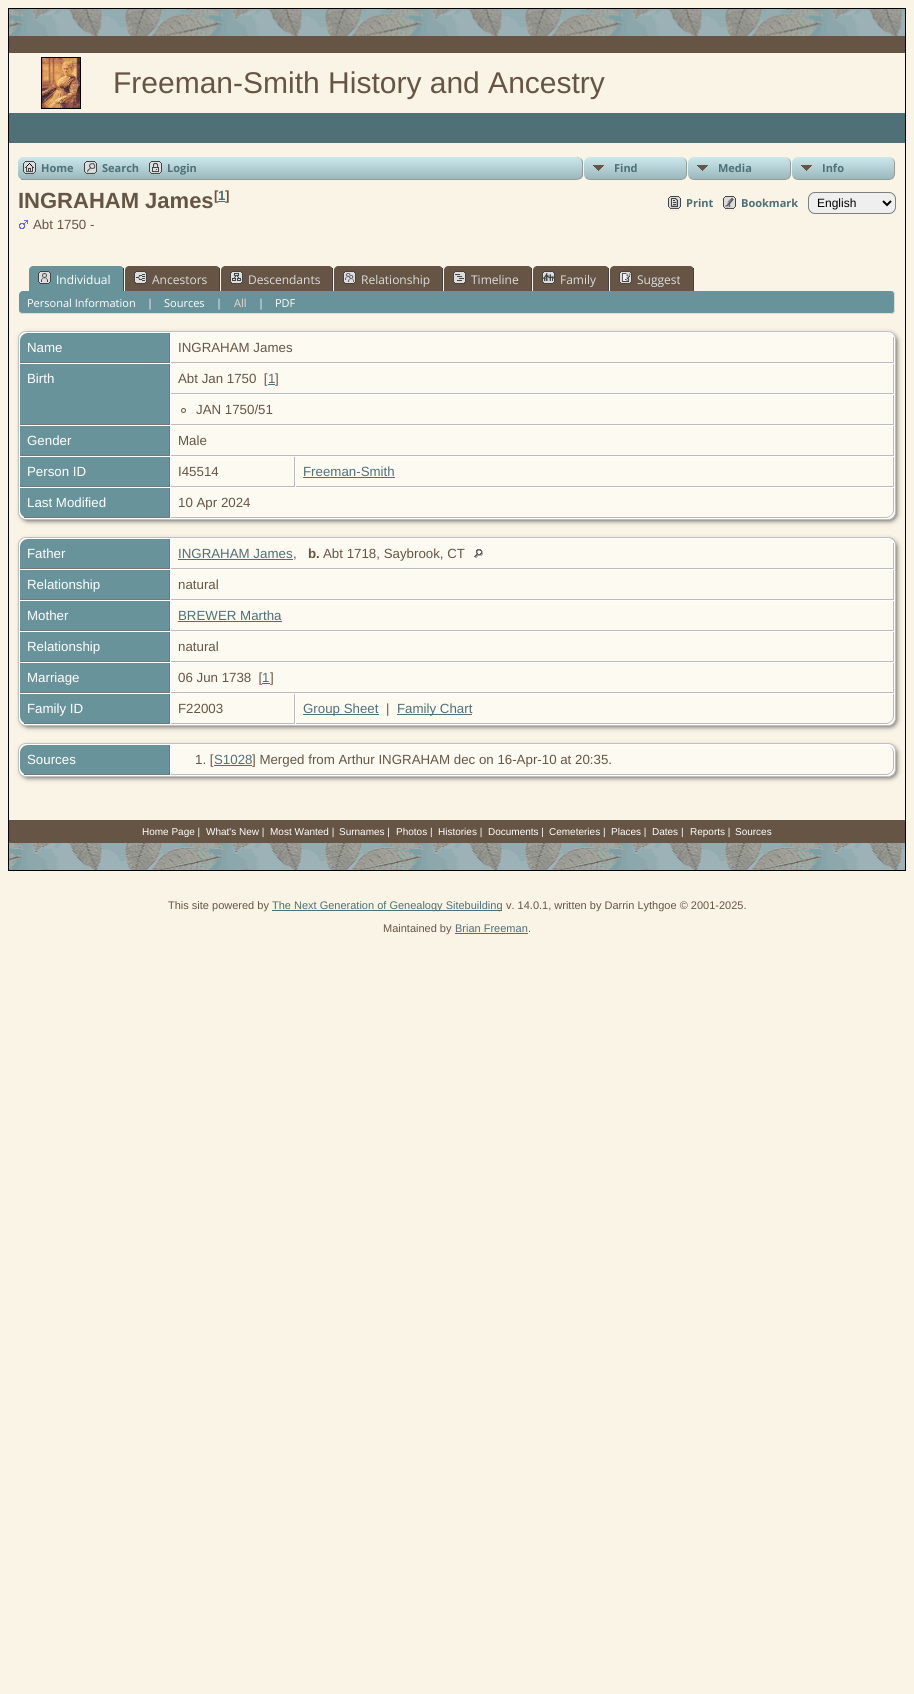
import math
import cairo

surface = cairo.ImageSurface(cairo.FORMAT_RGB24, 914, 1694)
ctx = cairo.Context(surface)
options = cairo.FontOptions()
options.set_hint_metrics(cairo.HINT_METRICS_OFF)
options.set_hint_style(cairo.HINT_STYLE_NONE)
ctx.set_font_options(options)
ctx.set_miter_limit(4)


def round_rect(x, y, w, h, r):
    ctx.new_sub_path()
    for i, (u, v) in enumerate([(x + w - r, y + h - r), (x + r, y + h - r), (x + r, y + r), (x + w - r, y + r)]):
        ctx.arc(u, v, r, i * math.pi / 2, (i + 1) * math.pi / 2)
    ctx.close_path()


def shadow(x, y, w, h, r, blur, alpha):
    ctx.push_group_with_content(cairo.CONTENT_ALPHA)
    ctx.set_operator(cairo.OPERATOR_SOURCE)
    for i in range(15, -16, -2):
        e = blur * i / 6
        if min(w, h) + 2 * e > 0:
            ctx.set_source_rgba(0, 0, 0, alpha * math.erfc((i - 1) / 8.5) / 2)
            round_rect(x - e, y - e, w + 2 * e, h + 2 * e, max(0, min(r + e + blur * .6, min(w, h) / 2 + e)))
            ctx.fill()
    ctx.mask(ctx.pop_group())


def picture(path, x, y, w, h):
    ctx.save()
    ctx.set_source_surface(cairo.ImageSurface.create_from_png(path), x, y)
    ctx.rectangle(x, y, w, h)
    ctx.fill()
    ctx.restore()


ctx.set_source_rgb(0.98, 0.957, 0.902)
ctx.paint()
ctx.set_source_rgb(0, 0, 0)
ctx.rectangle(8, 8, 898, 1)
ctx.fill()
ctx.set_source_rgb(0.4, 0.4, 0.4)
shadow(21, 334, 876, 187, 7, 2.5, 1)
shadow(21, 540, 876, 187, 7, 2.5, 1)
shadow(21, 746, 876, 32, 7, 2.5, 1)
ctx.set_source_rgb(0, 0, 0)
ctx.rectangle(905, 8, 1, 863)
ctx.fill()
ctx.rectangle(8, 870, 898, 1)
ctx.fill()
ctx.rectangle(8, 8, 1, 863)
ctx.fill()
picture("img1.png", 9, 9, 896, 27)
ctx.set_source_rgb(0.4, 0.333, 0.267)
ctx.rectangle(9, 36, 896, 17)
ctx.fill()
ctx.rectangle(41.5, 57.5, 39, 51)
ctx.set_source_rgb(0, 0, 0)
ctx.set_line_width(1)
ctx.stroke()
picture("img2.png", 42, 58, 38, 50)
ctx.select_font_face("Liberation Sans")
ctx.set_font_size(30)
ctx.set_source_rgb(0.4, 0.333, 0.267)
ctx.move_to(113, 93)
ctx.show_text("Freeman-Smith History and Ancestry")
ctx.set_source_rgb(0.306, 0.439, 0.463)
ctx.rectangle(9, 113, 896, 30)
ctx.fill()
ctx.set_source_rgb(0.706, 0.82, 0.839)
round_rect(18, 157, 878, 23, 6)
ctx.fill()
ctx.save()
round_rect(18, 157, 878, 23, 6)
ctx.clip()
gradient = cairo.LinearGradient(457, 157, 457, 179)
gradient.add_color_stop_rgba(0, 0.796, 0.914, 0.929, 1)
gradient.add_color_stop_rgba(1, 0.608, 0.725, 0.741, 1)
ctx.set_source(gradient)
ctx.new_path()
ctx.move_to(24, 157)
ctx.line_to(890, 157)
ctx.curve_to(893.5, 157, 896, 159.5, 896, 163)
ctx.line_to(896, 179)
ctx.line_to(18, 179)
ctx.line_to(18, 163)
ctx.curve_to(18, 159.5, 20.5, 157, 24, 157)
ctx.close_path()
ctx.fill()
ctx.restore()
ctx.set_source_rgb(0.6, 0.6, 0.6)
ctx.rectangle(21, 179, 551, 1)
ctx.fill()
picture("img3.png", 23, 161, 13, 15)
ctx.select_font_face("Open Sans", cairo.FONT_SLANT_NORMAL, cairo.FONT_WEIGHT_BOLD)
ctx.set_font_size(11)
ctx.set_source_rgb(0.306, 0.439, 0.463)
ctx.move_to(41, 172)
ctx.show_text("Home")
picture("img4.png", 84, 161, 13, 15)
ctx.move_to(102, 172)
ctx.show_text("Search")
picture("img5.png", 149, 161, 13, 15)
ctx.move_to(167, 172)
ctx.show_text("Login")
ctx.set_source_rgb(0.98, 0.957, 0.902)
ctx.rectangle(577, 157, 319, 23)
ctx.fill()
ctx.save()
ctx.new_path()
ctx.move_to(572, 157)
ctx.line_to(577, 157)
ctx.curve_to(580.5, 157, 583, 159.5, 583, 163)
ctx.line_to(583, 174)
ctx.curve_to(583, 177.5, 580.5, 180, 577, 180)
ctx.line_to(572, 180)
ctx.close_path()
ctx.clip()
gradient = cairo.LinearGradient(577, 157, 577, 179)
gradient.add_color_stop_rgba(0, 0.796, 0.914, 0.929, 1)
gradient.add_color_stop_rgba(1, 0.608, 0.725, 0.741, 1)
ctx.set_source(gradient)
ctx.rectangle(572, 157, 11, 22)
ctx.fill()
gradient = cairo.LinearGradient(577, 179, 577, 201)
gradient.add_color_stop_rgba(0, 0.796, 0.914, 0.929, 1)
gradient.add_color_stop_rgba(1, 0.608, 0.725, 0.741, 1)
ctx.set_source(gradient)
ctx.rectangle(572, 179, 11, 1)
ctx.fill()
ctx.restore()
ctx.set_source_rgb(0.6, 0.6, 0.6)
ctx.set_fill_rule(cairo.FILL_RULE_EVEN_ODD)
ctx.new_path()
ctx.move_to(572, 157)
ctx.curve_to(576, 157, 582, 156.5, 583, 162)
ctx.line_to(583, 175)
ctx.curve_to(582, 180.5, 576, 180, 572, 180)
ctx.close_path()
ctx.move_to(572, 157)
ctx.line_to(578, 157)
ctx.curve_to(583, 158.5, 582, 165, 582, 168.5)
ctx.curve_to(582, 178.5, 581.5, 179, 572, 179)
ctx.close_path()
ctx.fill()
picture("img6.png", 584, 157, 102, 22)
ctx.new_path()
ctx.move_to(590, 157)
ctx.line_to(681, 157)
ctx.curve_to(684, 157, 687, 160, 687, 163)
ctx.line_to(687, 174)
ctx.curve_to(687, 177, 684, 180, 681, 180)
ctx.line_to(590, 180)
ctx.curve_to(587, 180, 584, 177, 584, 174)
ctx.line_to(584, 163)
ctx.curve_to(584, 160, 587, 157, 590, 157)
ctx.close_path()
ctx.move_to(590, 157)
ctx.line_to(681, 157)
ctx.curve_to(684, 157, 686, 160, 686, 163)
ctx.line_to(686, 174)
ctx.curve_to(686, 177, 684, 179, 681, 179)
ctx.line_to(590, 179)
ctx.curve_to(587, 179, 584, 177, 584, 174)
ctx.line_to(584, 163)
ctx.curve_to(584, 160, 587, 157, 590, 157)
ctx.close_path()
ctx.fill()
ctx.set_source_rgb(0.306, 0.439, 0.463)
ctx.move_to(614, 172)
ctx.show_text("Find")
picture("img7.png", 688, 157, 102, 22)
ctx.set_source_rgb(0.6, 0.6, 0.6)
ctx.new_path()
ctx.move_to(694, 157)
ctx.line_to(785, 157)
ctx.curve_to(788, 157, 791, 160, 791, 163)
ctx.line_to(791, 174)
ctx.curve_to(791, 177, 788, 180, 785, 180)
ctx.line_to(694, 180)
ctx.curve_to(691, 180, 688, 177, 688, 174)
ctx.line_to(688, 163)
ctx.curve_to(688, 160, 691, 157, 694, 157)
ctx.close_path()
ctx.move_to(694, 157)
ctx.line_to(785, 157)
ctx.curve_to(788, 157, 790, 160, 790, 163)
ctx.line_to(790, 174)
ctx.curve_to(790, 177, 788, 179, 785, 179)
ctx.line_to(694, 179)
ctx.curve_to(691, 179, 688, 177, 688, 174)
ctx.line_to(688, 163)
ctx.curve_to(688, 160, 691, 157, 694, 157)
ctx.close_path()
ctx.fill()
ctx.set_source_rgb(0.306, 0.439, 0.463)
ctx.move_to(718, 172)
ctx.show_text("Media")
picture("img6.png", 792, 157, 102, 22)
ctx.set_source_rgb(0.6, 0.6, 0.6)
ctx.new_path()
ctx.move_to(798, 157)
ctx.line_to(889, 157)
ctx.curve_to(892, 157, 895, 160, 895, 163)
ctx.line_to(895, 174)
ctx.curve_to(895, 177, 892, 180, 889, 180)
ctx.line_to(798, 180)
ctx.curve_to(795, 180, 792, 177, 792, 174)
ctx.line_to(792, 163)
ctx.curve_to(792, 160, 795, 157, 798, 157)
ctx.close_path()
ctx.move_to(798, 157)
ctx.line_to(889, 157)
ctx.curve_to(892, 157, 894, 160, 894, 163)
ctx.line_to(894, 174)
ctx.curve_to(894, 177, 892, 179, 889, 179)
ctx.line_to(798, 179)
ctx.curve_to(795, 179, 792, 177, 792, 174)
ctx.line_to(792, 163)
ctx.curve_to(792, 160, 795, 157, 798, 157)
ctx.close_path()
ctx.fill()
ctx.set_source_rgb(0.306, 0.439, 0.463)
ctx.move_to(822, 172)
ctx.show_text("Info")
ctx.select_font_face("Liberation Sans", cairo.FONT_SLANT_NORMAL, cairo.FONT_WEIGHT_BOLD)
ctx.set_font_size(22)
ctx.set_source_rgb(0.4, 0.333, 0.267)
ctx.move_to(18, 208)
ctx.show_text("INGRAHAM James")
ctx.set_font_size(13.3)
ctx.move_to(214, 200)
ctx.show_text("[")
ctx.set_source_rgb(0.306, 0.439, 0.463)
ctx.rectangle(218, 201, 7, 1)
ctx.fill()
ctx.move_to(218, 200)
ctx.show_text("1")
ctx.set_source_rgb(0.4, 0.333, 0.267)
ctx.move_to(225, 200)
ctx.show_text("]")
picture("img8.png", 19, 220, 9, 9)
ctx.select_font_face("Liberation Sans")
ctx.move_to(33, 229)
ctx.show_text("Abt 1750 -")
ctx.set_source_rgb(0.408, 0.576, 0.608)
ctx.new_path()
ctx.move_to(33, 266)
ctx.line_to(120, 266)
ctx.curve_to(122, 266, 124, 268, 124, 270)
ctx.line_to(124, 291)
ctx.line_to(29, 291)
ctx.line_to(29, 270)
ctx.curve_to(29, 268, 31, 266, 33, 266)
ctx.close_path()
ctx.fill()
ctx.set_source_rgb(0.267, 0.267, 0.267)
ctx.rectangle(123, 268, 1, 23)
ctx.fill()
picture("img9.png", 38, 271, 13, 13)
ctx.select_font_face("Open Sans")
ctx.set_font_size(12)
ctx.set_source_rgb(1, 1, 1)
ctx.move_to(56, 284)
ctx.show_text("Individual")
ctx.set_source_rgb(0.4, 0.333, 0.267)
ctx.new_path()
ctx.move_to(129, 266)
ctx.line_to(216, 266)
ctx.curve_to(218, 266, 220, 268, 220, 270)
ctx.line_to(220, 291)
ctx.line_to(125, 291)
ctx.line_to(125, 270)
ctx.curve_to(125, 268, 127, 266, 129, 266)
ctx.close_path()
ctx.fill()
ctx.set_source_rgb(0.267, 0.267, 0.267)
ctx.rectangle(219, 268, 1, 23)
ctx.fill()
picture("img10.png", 134, 271, 13, 13)
ctx.set_source_rgb(0.867, 0.867, 0.867)
ctx.move_to(152, 284)
ctx.show_text("Ancestors")
ctx.set_source_rgb(0.4, 0.333, 0.267)
ctx.new_path()
ctx.move_to(225, 266)
ctx.line_to(329, 266)
ctx.curve_to(331, 266, 333, 268, 333, 270)
ctx.line_to(333, 291)
ctx.line_to(221, 291)
ctx.line_to(221, 270)
ctx.curve_to(221, 268, 223, 266, 225, 266)
ctx.close_path()
ctx.fill()
ctx.set_source_rgb(0.267, 0.267, 0.267)
ctx.rectangle(332, 268, 1, 23)
ctx.fill()
picture("img11.png", 230, 271, 13, 13)
ctx.set_source_rgb(0.867, 0.867, 0.867)
ctx.move_to(248, 284)
ctx.show_text("Descendants")
ctx.set_source_rgb(0.4, 0.333, 0.267)
ctx.new_path()
ctx.move_to(338, 266)
ctx.line_to(439, 266)
ctx.curve_to(441, 266, 443, 268, 443, 270)
ctx.line_to(443, 291)
ctx.line_to(334, 291)
ctx.line_to(334, 270)
ctx.curve_to(334, 268, 336, 266, 338, 266)
ctx.close_path()
ctx.fill()
ctx.set_source_rgb(0.267, 0.267, 0.267)
ctx.rectangle(442, 268, 1, 23)
ctx.fill()
picture("img12.png", 343, 271, 13, 13)
ctx.set_source_rgb(0.867, 0.867, 0.867)
ctx.move_to(361, 284)
ctx.show_text("Relationship")
ctx.set_source_rgb(0.4, 0.333, 0.267)
ctx.new_path()
ctx.move_to(448, 266)
ctx.line_to(528, 266)
ctx.curve_to(530, 266, 532, 268, 532, 270)
ctx.line_to(532, 291)
ctx.line_to(444, 291)
ctx.line_to(444, 270)
ctx.curve_to(444, 268, 446, 266, 448, 266)
ctx.close_path()
ctx.fill()
ctx.set_source_rgb(0.267, 0.267, 0.267)
ctx.rectangle(531, 268, 1, 23)
ctx.fill()
picture("img13.png", 453, 271, 13, 13)
ctx.set_source_rgb(0.867, 0.867, 0.867)
ctx.move_to(471, 284)
ctx.show_text("Timeline")
ctx.set_source_rgb(0.4, 0.333, 0.267)
ctx.new_path()
ctx.move_to(537, 266)
ctx.line_to(605, 266)
ctx.curve_to(607, 266, 609, 268, 609, 270)
ctx.line_to(609, 291)
ctx.line_to(533, 291)
ctx.line_to(533, 270)
ctx.curve_to(533, 268, 535, 266, 537, 266)
ctx.close_path()
ctx.fill()
ctx.set_source_rgb(0.267, 0.267, 0.267)
ctx.rectangle(608, 268, 1, 23)
ctx.fill()
picture("img14.png", 542, 271, 13, 13)
ctx.set_source_rgb(0.867, 0.867, 0.867)
ctx.move_to(560, 284)
ctx.show_text("Family")
ctx.set_source_rgb(0.4, 0.333, 0.267)
ctx.new_path()
ctx.move_to(614, 266)
ctx.line_to(690, 266)
ctx.curve_to(692, 266, 694, 268, 694, 270)
ctx.line_to(694, 291)
ctx.line_to(610, 291)
ctx.line_to(610, 270)
ctx.curve_to(610, 268, 612, 266, 614, 266)
ctx.close_path()
ctx.fill()
ctx.set_source_rgb(0.267, 0.267, 0.267)
ctx.rectangle(693, 268, 1, 23)
ctx.fill()
picture("img15.png", 619, 271, 13, 13)
ctx.set_source_rgb(0.867, 0.867, 0.867)
ctx.move_to(637, 284)
ctx.show_text("Suggest")
ctx.set_source_rgb(0.408, 0.576, 0.608)
round_rect(19, 291, 876, 23, 4)
ctx.fill()
ctx.set_source_rgb(0.867, 0.867, 0.867)
ctx.new_path()
ctx.move_to(23, 291)
ctx.line_to(891, 291)
ctx.curve_to(893, 291, 895, 293, 895, 295)
ctx.line_to(895, 310)
ctx.curve_to(895, 312, 893, 314, 891, 314)
ctx.line_to(23, 314)
ctx.curve_to(21, 314, 19, 312, 19, 310)
ctx.line_to(19, 295)
ctx.curve_to(19, 293, 21, 291, 23, 291)
ctx.close_path()
ctx.move_to(23, 291)
ctx.line_to(891, 291)
ctx.curve_to(893, 291, 894, 293, 894, 295)
ctx.line_to(894, 310)
ctx.curve_to(894, 312, 893, 313, 891, 313)
ctx.line_to(23, 313)
ctx.curve_to(21, 313, 19, 312, 19, 310)
ctx.line_to(19, 295)
ctx.curve_to(19, 293, 21, 291, 23, 291)
ctx.close_path()
ctx.fill()
ctx.set_font_size(11)
ctx.set_source_rgb(1, 1, 1)
ctx.move_to(27, 307)
ctx.show_text("Personal Information")
ctx.move_to(147, 307)
ctx.show_text("|")
ctx.move_to(164, 307)
ctx.show_text("Sources")
ctx.move_to(216, 307)
ctx.show_text("|")
ctx.set_source_rgb(0.925, 0.851, 0.8)
ctx.move_to(234, 307)
ctx.show_text("All")
ctx.set_source_rgb(1, 1, 1)
ctx.move_to(258, 307)
ctx.show_text("|")
ctx.move_to(275, 307)
ctx.show_text("PDF")
round_rect(18.5, 331.5, 877, 188, 7.5)
ctx.fill_preserve()
ctx.set_source_rgb(0.753, 0.753, 0.753)
ctx.stroke()
ctx.set_source_rgb(0.408, 0.576, 0.608)
ctx.new_path()
ctx.move_to(28, 333)
ctx.line_to(170, 333)
ctx.line_to(170, 363)
ctx.line_to(20, 363)
ctx.line_to(20, 341)
ctx.curve_to(20, 336.5, 23.5, 333, 28, 333)
ctx.close_path()
ctx.fill()
ctx.set_source_rgb(0.467, 0.467, 0.467)
ctx.rectangle(169, 333, 1, 30)
ctx.fill()
ctx.rectangle(20, 362, 150, 1)
ctx.fill()
ctx.select_font_face("Liberation Sans")
ctx.set_font_size(13.3)
ctx.set_source_rgb(1, 1, 1)
ctx.move_to(27, 352)
ctx.show_text("Name")
ctx.set_source_rgb(0.992, 0.98, 0.949)
ctx.new_path()
ctx.move_to(171, 333)
ctx.line_to(886, 333)
ctx.curve_to(890.5, 333, 894, 336.5, 894, 341)
ctx.line_to(894, 363)
ctx.line_to(171, 363)
ctx.close_path()
ctx.fill()
ctx.set_source_rgb(0.733, 0.733, 0.733)
ctx.rectangle(893, 337, 1, 26)
ctx.fill()
ctx.rectangle(171, 362, 723, 1)
ctx.fill()
ctx.set_source_rgb(0.4, 0.333, 0.267)
ctx.move_to(178, 352)
ctx.show_text("INGRAHAM James")
ctx.set_source_rgb(0.408, 0.576, 0.608)
ctx.rectangle(20, 364, 149, 60)
ctx.fill()
ctx.set_source_rgb(0.467, 0.467, 0.467)
ctx.rectangle(169, 364, 1, 61)
ctx.fill()
ctx.rectangle(20, 424, 150, 1)
ctx.fill()
ctx.set_source_rgb(1, 1, 1)
ctx.move_to(27, 383)
ctx.show_text("Birth")
ctx.set_source_rgb(0.992, 0.98, 0.949)
ctx.rectangle(171, 364, 722, 29)
ctx.fill()
ctx.set_source_rgb(0.733, 0.733, 0.733)
ctx.rectangle(893, 364, 1, 30)
ctx.fill()
ctx.rectangle(171, 393, 723, 1)
ctx.fill()
ctx.set_source_rgb(0.4, 0.333, 0.267)
ctx.move_to(178, 383)
ctx.show_text("Abt Jan 1750  [")
ctx.set_source_rgb(0.306, 0.439, 0.463)
ctx.move_to(268, 383)
ctx.show_text("1")
ctx.rectangle(268, 384, 7, 1)
ctx.fill()
ctx.set_source_rgb(0.4, 0.333, 0.267)
ctx.move_to(275, 383)
ctx.show_text("]")
ctx.set_source_rgb(0.992, 0.98, 0.949)
ctx.rectangle(171, 395, 722, 29)
ctx.fill()
ctx.set_source_rgb(0.733, 0.733, 0.733)
ctx.rectangle(893, 395, 1, 30)
ctx.fill()
ctx.rectangle(171, 424, 723, 1)
ctx.fill()
ctx.arc(183.5, 410.5, 2, 0, 2 * math.pi)
ctx.set_source_rgb(0.4, 0.333, 0.267)
ctx.stroke()
ctx.move_to(196, 414)
ctx.show_text("JAN 1750/51")
ctx.set_source_rgb(0.408, 0.576, 0.608)
ctx.rectangle(20, 426, 149, 29)
ctx.fill()
ctx.set_source_rgb(0.467, 0.467, 0.467)
ctx.rectangle(169, 426, 1, 30)
ctx.fill()
ctx.rectangle(20, 455, 150, 1)
ctx.fill()
ctx.set_source_rgb(1, 1, 1)
ctx.move_to(27, 445)
ctx.show_text("Gender")
ctx.set_source_rgb(0.992, 0.98, 0.949)
ctx.rectangle(171, 426, 722, 29)
ctx.fill()
ctx.set_source_rgb(0.733, 0.733, 0.733)
ctx.rectangle(893, 426, 1, 30)
ctx.fill()
ctx.rectangle(171, 455, 723, 1)
ctx.fill()
ctx.set_source_rgb(0.4, 0.333, 0.267)
ctx.move_to(178, 445)
ctx.show_text("Male")
ctx.set_source_rgb(0.408, 0.576, 0.608)
ctx.rectangle(20, 457, 149, 29)
ctx.fill()
ctx.set_source_rgb(0.467, 0.467, 0.467)
ctx.rectangle(169, 457, 1, 30)
ctx.fill()
ctx.rectangle(20, 486, 150, 1)
ctx.fill()
ctx.set_source_rgb(1, 1, 1)
ctx.move_to(27, 476)
ctx.show_text("Person ID")
ctx.set_source_rgb(0.992, 0.98, 0.949)
ctx.rectangle(171, 457, 123, 29)
ctx.fill()
ctx.set_source_rgb(0.733, 0.733, 0.733)
ctx.rectangle(294, 457, 1, 30)
ctx.fill()
ctx.rectangle(171, 486, 124, 1)
ctx.fill()
ctx.set_source_rgb(0.4, 0.333, 0.267)
ctx.move_to(178, 476)
ctx.show_text("I45514")
ctx.set_source_rgb(0.992, 0.98, 0.949)
ctx.rectangle(296, 457, 597, 29)
ctx.fill()
ctx.set_source_rgb(0.733, 0.733, 0.733)
ctx.rectangle(893, 457, 1, 30)
ctx.fill()
ctx.rectangle(296, 486, 598, 1)
ctx.fill()
ctx.set_source_rgb(0.306, 0.439, 0.463)
ctx.move_to(303, 476)
ctx.show_text("Freeman-Smith")
ctx.rectangle(303, 477, 92, 1)
ctx.fill()
ctx.set_source_rgb(0.408, 0.576, 0.608)
ctx.new_path()
ctx.move_to(20, 488)
ctx.line_to(170, 488)
ctx.line_to(170, 518)
ctx.line_to(28, 518)
ctx.curve_to(23.5, 518, 20, 514.5, 20, 510)
ctx.close_path()
ctx.fill()
ctx.set_source_rgb(0.467, 0.467, 0.467)
ctx.rectangle(169, 488, 1, 30)
ctx.fill()
ctx.rectangle(24, 517, 146, 1)
ctx.fill()
ctx.set_source_rgb(1, 1, 1)
ctx.move_to(27, 507)
ctx.show_text("Last Modified")
ctx.set_source_rgb(0.992, 0.98, 0.949)
ctx.new_path()
ctx.move_to(171, 488)
ctx.line_to(894, 488)
ctx.line_to(894, 510)
ctx.curve_to(894, 514.5, 890.5, 518, 886, 518)
ctx.line_to(171, 518)
ctx.close_path()
ctx.fill()
ctx.set_source_rgb(0.733, 0.733, 0.733)
ctx.new_path()
ctx.move_to(171, 488)
ctx.line_to(894, 488)
ctx.line_to(894, 510)
ctx.curve_to(894, 514, 890, 518, 886, 518)
ctx.line_to(171, 518)
ctx.close_path()
ctx.move_to(171, 488)
ctx.line_to(893, 488)
ctx.line_to(893, 510)
ctx.curve_to(893, 514, 890, 517, 886, 517)
ctx.line_to(171, 517)
ctx.close_path()
ctx.fill()
ctx.set_source_rgb(0.4, 0.333, 0.267)
ctx.move_to(178, 507)
ctx.show_text("10 Apr 2024")
ctx.set_source_rgb(1, 1, 1)
round_rect(18.5, 537.5, 877, 188, 7.5)
ctx.fill_preserve()
ctx.set_source_rgb(0.753, 0.753, 0.753)
ctx.stroke()
ctx.set_source_rgb(0.408, 0.576, 0.608)
ctx.new_path()
ctx.move_to(28, 539)
ctx.line_to(170, 539)
ctx.line_to(170, 569)
ctx.line_to(20, 569)
ctx.line_to(20, 547)
ctx.curve_to(20, 542.5, 23.5, 539, 28, 539)
ctx.close_path()
ctx.fill()
ctx.set_source_rgb(0.467, 0.467, 0.467)
ctx.rectangle(169, 539, 1, 30)
ctx.fill()
ctx.rectangle(20, 568, 150, 1)
ctx.fill()
ctx.set_source_rgb(1, 1, 1)
ctx.move_to(27, 558)
ctx.show_text("Father")
ctx.set_source_rgb(0.992, 0.98, 0.949)
ctx.new_path()
ctx.move_to(171, 539)
ctx.line_to(886, 539)
ctx.curve_to(890.5, 539, 894, 542.5, 894, 547)
ctx.line_to(894, 569)
ctx.line_to(171, 569)
ctx.close_path()
ctx.fill()
ctx.set_source_rgb(0.733, 0.733, 0.733)
ctx.rectangle(893, 543, 1, 26)
ctx.fill()
ctx.rectangle(171, 568, 723, 1)
ctx.fill()
ctx.set_source_rgb(0.306, 0.439, 0.463)
ctx.move_to(178, 558)
ctx.show_text("INGRAHAM James")
ctx.rectangle(178, 559, 115, 1)
ctx.fill()
ctx.set_source_rgb(0.4, 0.333, 0.267)
ctx.move_to(293, 558)
ctx.show_text(",")
ctx.select_font_face("Liberation Sans", cairo.FONT_SLANT_NORMAL, cairo.FONT_WEIGHT_BOLD)
ctx.move_to(308, 558)
ctx.show_text("b.")
ctx.select_font_face("Liberation Sans")
ctx.move_to(323, 558)
ctx.show_text("Abt 1718, Saybrook, CT")
picture("img16.png", 474, 549, 9, 9)
ctx.set_source_rgb(0.408, 0.576, 0.608)
ctx.rectangle(20, 570, 149, 29)
ctx.fill()
ctx.set_source_rgb(0.467, 0.467, 0.467)
ctx.rectangle(169, 570, 1, 30)
ctx.fill()
ctx.rectangle(20, 599, 150, 1)
ctx.fill()
ctx.set_source_rgb(1, 1, 1)
ctx.move_to(27, 589)
ctx.show_text("Relationship")
ctx.set_source_rgb(0.992, 0.98, 0.949)
ctx.rectangle(171, 570, 722, 29)
ctx.fill()
ctx.set_source_rgb(0.733, 0.733, 0.733)
ctx.rectangle(893, 570, 1, 30)
ctx.fill()
ctx.rectangle(171, 599, 723, 1)
ctx.fill()
ctx.set_source_rgb(0.4, 0.333, 0.267)
ctx.move_to(178, 589)
ctx.show_text("natural")
ctx.set_source_rgb(0.408, 0.576, 0.608)
ctx.rectangle(20, 601, 149, 29)
ctx.fill()
ctx.set_source_rgb(0.467, 0.467, 0.467)
ctx.rectangle(169, 601, 1, 30)
ctx.fill()
ctx.rectangle(20, 630, 150, 1)
ctx.fill()
ctx.set_source_rgb(1, 1, 1)
ctx.move_to(27, 620)
ctx.show_text("Mother")
ctx.set_source_rgb(0.992, 0.98, 0.949)
ctx.rectangle(171, 601, 722, 29)
ctx.fill()
ctx.set_source_rgb(0.733, 0.733, 0.733)
ctx.rectangle(893, 601, 1, 30)
ctx.fill()
ctx.rectangle(171, 630, 723, 1)
ctx.fill()
ctx.set_source_rgb(0.306, 0.439, 0.463)
ctx.move_to(178, 620)
ctx.show_text("BREWER Martha")
ctx.rectangle(178, 621, 104, 1)
ctx.fill()
ctx.set_source_rgb(0.408, 0.576, 0.608)
ctx.rectangle(20, 632, 149, 29)
ctx.fill()
ctx.set_source_rgb(0.467, 0.467, 0.467)
ctx.rectangle(169, 632, 1, 30)
ctx.fill()
ctx.rectangle(20, 661, 150, 1)
ctx.fill()
ctx.set_source_rgb(1, 1, 1)
ctx.move_to(27, 651)
ctx.show_text("Relationship")
ctx.set_source_rgb(0.992, 0.98, 0.949)
ctx.rectangle(171, 632, 722, 29)
ctx.fill()
ctx.set_source_rgb(0.733, 0.733, 0.733)
ctx.rectangle(893, 632, 1, 30)
ctx.fill()
ctx.rectangle(171, 661, 723, 1)
ctx.fill()
ctx.set_source_rgb(0.4, 0.333, 0.267)
ctx.move_to(178, 651)
ctx.show_text("natural")
ctx.set_source_rgb(0.408, 0.576, 0.608)
ctx.rectangle(20, 663, 149, 29)
ctx.fill()
ctx.set_source_rgb(0.467, 0.467, 0.467)
ctx.rectangle(169, 663, 1, 30)
ctx.fill()
ctx.rectangle(20, 692, 150, 1)
ctx.fill()
ctx.set_source_rgb(1, 1, 1)
ctx.move_to(27, 682)
ctx.show_text("Marriage")
ctx.set_source_rgb(0.992, 0.98, 0.949)
ctx.rectangle(171, 663, 722, 29)
ctx.fill()
ctx.set_source_rgb(0.733, 0.733, 0.733)
ctx.rectangle(893, 663, 1, 30)
ctx.fill()
ctx.rectangle(171, 692, 723, 1)
ctx.fill()
ctx.set_source_rgb(0.4, 0.333, 0.267)
ctx.move_to(178, 682)
ctx.show_text("06 Jun 1738  [")
ctx.set_source_rgb(0.306, 0.439, 0.463)
ctx.move_to(262, 682)
ctx.show_text("1")
ctx.rectangle(262, 683, 8, 1)
ctx.fill()
ctx.set_source_rgb(0.4, 0.333, 0.267)
ctx.move_to(270, 682)
ctx.show_text("]")
ctx.set_source_rgb(0.408, 0.576, 0.608)
ctx.new_path()
ctx.move_to(20, 694)
ctx.line_to(170, 694)
ctx.line_to(170, 724)
ctx.line_to(28, 724)
ctx.curve_to(23.5, 724, 20, 720.5, 20, 716)
ctx.close_path()
ctx.fill()
ctx.set_source_rgb(0.467, 0.467, 0.467)
ctx.rectangle(169, 694, 1, 30)
ctx.fill()
ctx.rectangle(24, 723, 146, 1)
ctx.fill()
ctx.set_source_rgb(1, 1, 1)
ctx.move_to(27, 713)
ctx.show_text("Family ID")
ctx.set_source_rgb(0.992, 0.98, 0.949)
ctx.rectangle(171, 694, 123, 29)
ctx.fill()
ctx.set_source_rgb(0.733, 0.733, 0.733)
ctx.rectangle(294, 694, 1, 30)
ctx.fill()
ctx.rectangle(171, 723, 124, 1)
ctx.fill()
ctx.set_source_rgb(0.4, 0.333, 0.267)
ctx.move_to(178, 713)
ctx.show_text("F22003")
ctx.set_source_rgb(0.992, 0.98, 0.949)
ctx.new_path()
ctx.move_to(296, 694)
ctx.line_to(894, 694)
ctx.line_to(894, 716)
ctx.curve_to(894, 720.5, 890.5, 724, 886, 724)
ctx.line_to(296, 724)
ctx.close_path()
ctx.fill()
ctx.set_source_rgb(0.733, 0.733, 0.733)
ctx.new_path()
ctx.move_to(296, 694)
ctx.line_to(894, 694)
ctx.line_to(894, 716)
ctx.curve_to(894, 720, 890, 724, 886, 724)
ctx.line_to(296, 724)
ctx.close_path()
ctx.move_to(296, 694)
ctx.line_to(893, 694)
ctx.line_to(893, 716)
ctx.curve_to(893, 720, 890, 723, 886, 723)
ctx.line_to(296, 723)
ctx.close_path()
ctx.fill()
ctx.set_source_rgb(0.306, 0.439, 0.463)
ctx.rectangle(303, 714, 76, 1)
ctx.fill()
ctx.move_to(303, 713)
ctx.show_text("Group Sheet")
ctx.set_source_rgb(0.4, 0.333, 0.267)
ctx.move_to(386, 713)
ctx.show_text("|")
ctx.set_source_rgb(0.306, 0.439, 0.463)
ctx.rectangle(397, 714, 75, 1)
ctx.fill()
ctx.move_to(397, 713)
ctx.show_text("Family Chart")
ctx.set_source_rgb(1, 1, 1)
round_rect(18.5, 743.5, 877, 33, 7.5)
ctx.fill_preserve()
ctx.set_source_rgb(0.753, 0.753, 0.753)
ctx.stroke()
ctx.set_source_rgb(0.408, 0.576, 0.608)
ctx.new_path()
ctx.move_to(28, 745)
ctx.line_to(170, 745)
ctx.line_to(170, 775)
ctx.line_to(28, 775)
ctx.curve_to(23.5, 775, 20, 771.5, 20, 767)
ctx.line_to(20, 753)
ctx.curve_to(20, 748.5, 23.5, 745, 28, 745)
ctx.close_path()
ctx.fill()
ctx.set_source_rgb(0.467, 0.467, 0.467)
ctx.rectangle(169, 745, 1, 30)
ctx.fill()
ctx.rectangle(24, 774, 146, 1)
ctx.fill()
ctx.set_source_rgb(1, 1, 1)
ctx.move_to(27, 764)
ctx.show_text("Sources")
ctx.set_source_rgb(0.992, 0.98, 0.949)
ctx.new_path()
ctx.move_to(171, 745)
ctx.line_to(886, 745)
ctx.curve_to(890.5, 745, 894, 748.5, 894, 753)
ctx.line_to(894, 767)
ctx.curve_to(894, 771.5, 890.5, 775, 886, 775)
ctx.line_to(171, 775)
ctx.close_path()
ctx.fill()
ctx.set_source_rgb(0.733, 0.733, 0.733)
ctx.new_path()
ctx.move_to(171, 745)
ctx.line_to(886, 745)
ctx.curve_to(890, 745, 894, 749, 894, 753)
ctx.line_to(894, 767)
ctx.curve_to(894, 771, 890, 775, 886, 775)
ctx.line_to(171, 775)
ctx.close_path()
ctx.move_to(171, 745)
ctx.line_to(886, 745)
ctx.curve_to(890, 745, 893, 749, 893, 753)
ctx.line_to(893, 767)
ctx.curve_to(893, 771, 890, 774, 886, 774)
ctx.line_to(171, 774)
ctx.close_path()
ctx.fill()
ctx.set_source_rgb(0.4, 0.333, 0.267)
ctx.move_to(195, 764)
ctx.show_text("1. [")
ctx.set_source_rgb(0.306, 0.439, 0.463)
ctx.move_to(214, 764)
ctx.show_text("S1028")
ctx.rectangle(214, 765, 38, 1)
ctx.fill()
ctx.set_source_rgb(0.4, 0.333, 0.267)
ctx.move_to(252, 764)
ctx.show_text("] Merged from Arthur INGRAHAM dec on 16-Apr-10 at 20:35.")
picture("img17.png", 668, 196, 13, 15)
ctx.select_font_face("Open Sans", cairo.FONT_SLANT_NORMAL, cairo.FONT_WEIGHT_BOLD)
ctx.set_font_size(11)
ctx.set_source_rgb(0.306, 0.439, 0.463)
ctx.move_to(686, 207)
ctx.show_text("Print")
picture("img18.png", 723, 196, 13, 15)
ctx.move_to(741, 207)
ctx.show_text("Bookmark")
ctx.set_source_rgb(0.937, 0.937, 0.937)
round_rect(808.5, 192.5, 87, 21, 6.5)
ctx.fill_preserve()
ctx.set_source_rgb(0.502, 0.502, 0.502)
ctx.stroke()
ctx.new_path()
ctx.move_to(883, 201)
ctx.line_to(887, 205)
ctx.line_to(891, 201)
ctx.set_source_rgb(0, 0, 0)
ctx.set_line_width(2)
ctx.stroke()
ctx.select_font_face("Liberation Sans")
ctx.set_font_size(12)
ctx.move_to(817, 207)
ctx.show_text("English")
ctx.set_source_rgb(0.4, 0.333, 0.267)
ctx.rectangle(9, 820, 896, 23)
ctx.fill()
ctx.set_font_size(10)
ctx.set_source_rgb(1, 1, 1)
ctx.move_to(142, 835)
ctx.show_text("Home Page |")
ctx.move_to(206, 835)
ctx.show_text("What's New |")
ctx.move_to(270, 835)
ctx.show_text("Most Wanted |")
ctx.move_to(339, 835)
ctx.show_text("Surnames |")
ctx.move_to(396, 835)
ctx.show_text("Photos |")
ctx.move_to(438, 835)
ctx.show_text("Histories |")
ctx.move_to(488, 835)
ctx.show_text("Documents |")
ctx.move_to(549, 835)
ctx.show_text("Cemeteries |")
ctx.move_to(611, 835)
ctx.show_text("Places |")
ctx.move_to(652, 835)
ctx.show_text("Dates |")
ctx.move_to(690, 835)
ctx.show_text("Reports |")
ctx.move_to(735, 835)
ctx.show_text("Sources")
picture("img19.png", 9, 843, 896, 27)
ctx.set_font_size(11)
ctx.set_source_rgb(0.4, 0.333, 0.267)
ctx.move_to(168, 909)
ctx.show_text("This site powered by")
ctx.set_source_rgb(0.306, 0.439, 0.463)
ctx.rectangle(272, 910, 230, 1)
ctx.fill()
ctx.move_to(272, 909)
ctx.show_text("The Next Generation of Genealogy Sitebuilding")
ctx.set_source_rgb(0.4, 0.333, 0.267)
ctx.move_to(506, 909)
ctx.show_text("v. 14.0.1, written by Darrin Lythgoe © 2001-2025.")
ctx.move_to(383, 932)
ctx.show_text("Maintained by")
ctx.set_source_rgb(0.306, 0.439, 0.463)
ctx.move_to(455, 932)
ctx.show_text("Brian Freeman")
ctx.rectangle(455, 933, 73, 1)
ctx.fill()
ctx.set_source_rgb(0.4, 0.333, 0.267)
ctx.move_to(528, 932)
ctx.show_text(".")
surface.write_to_png("page.png")
